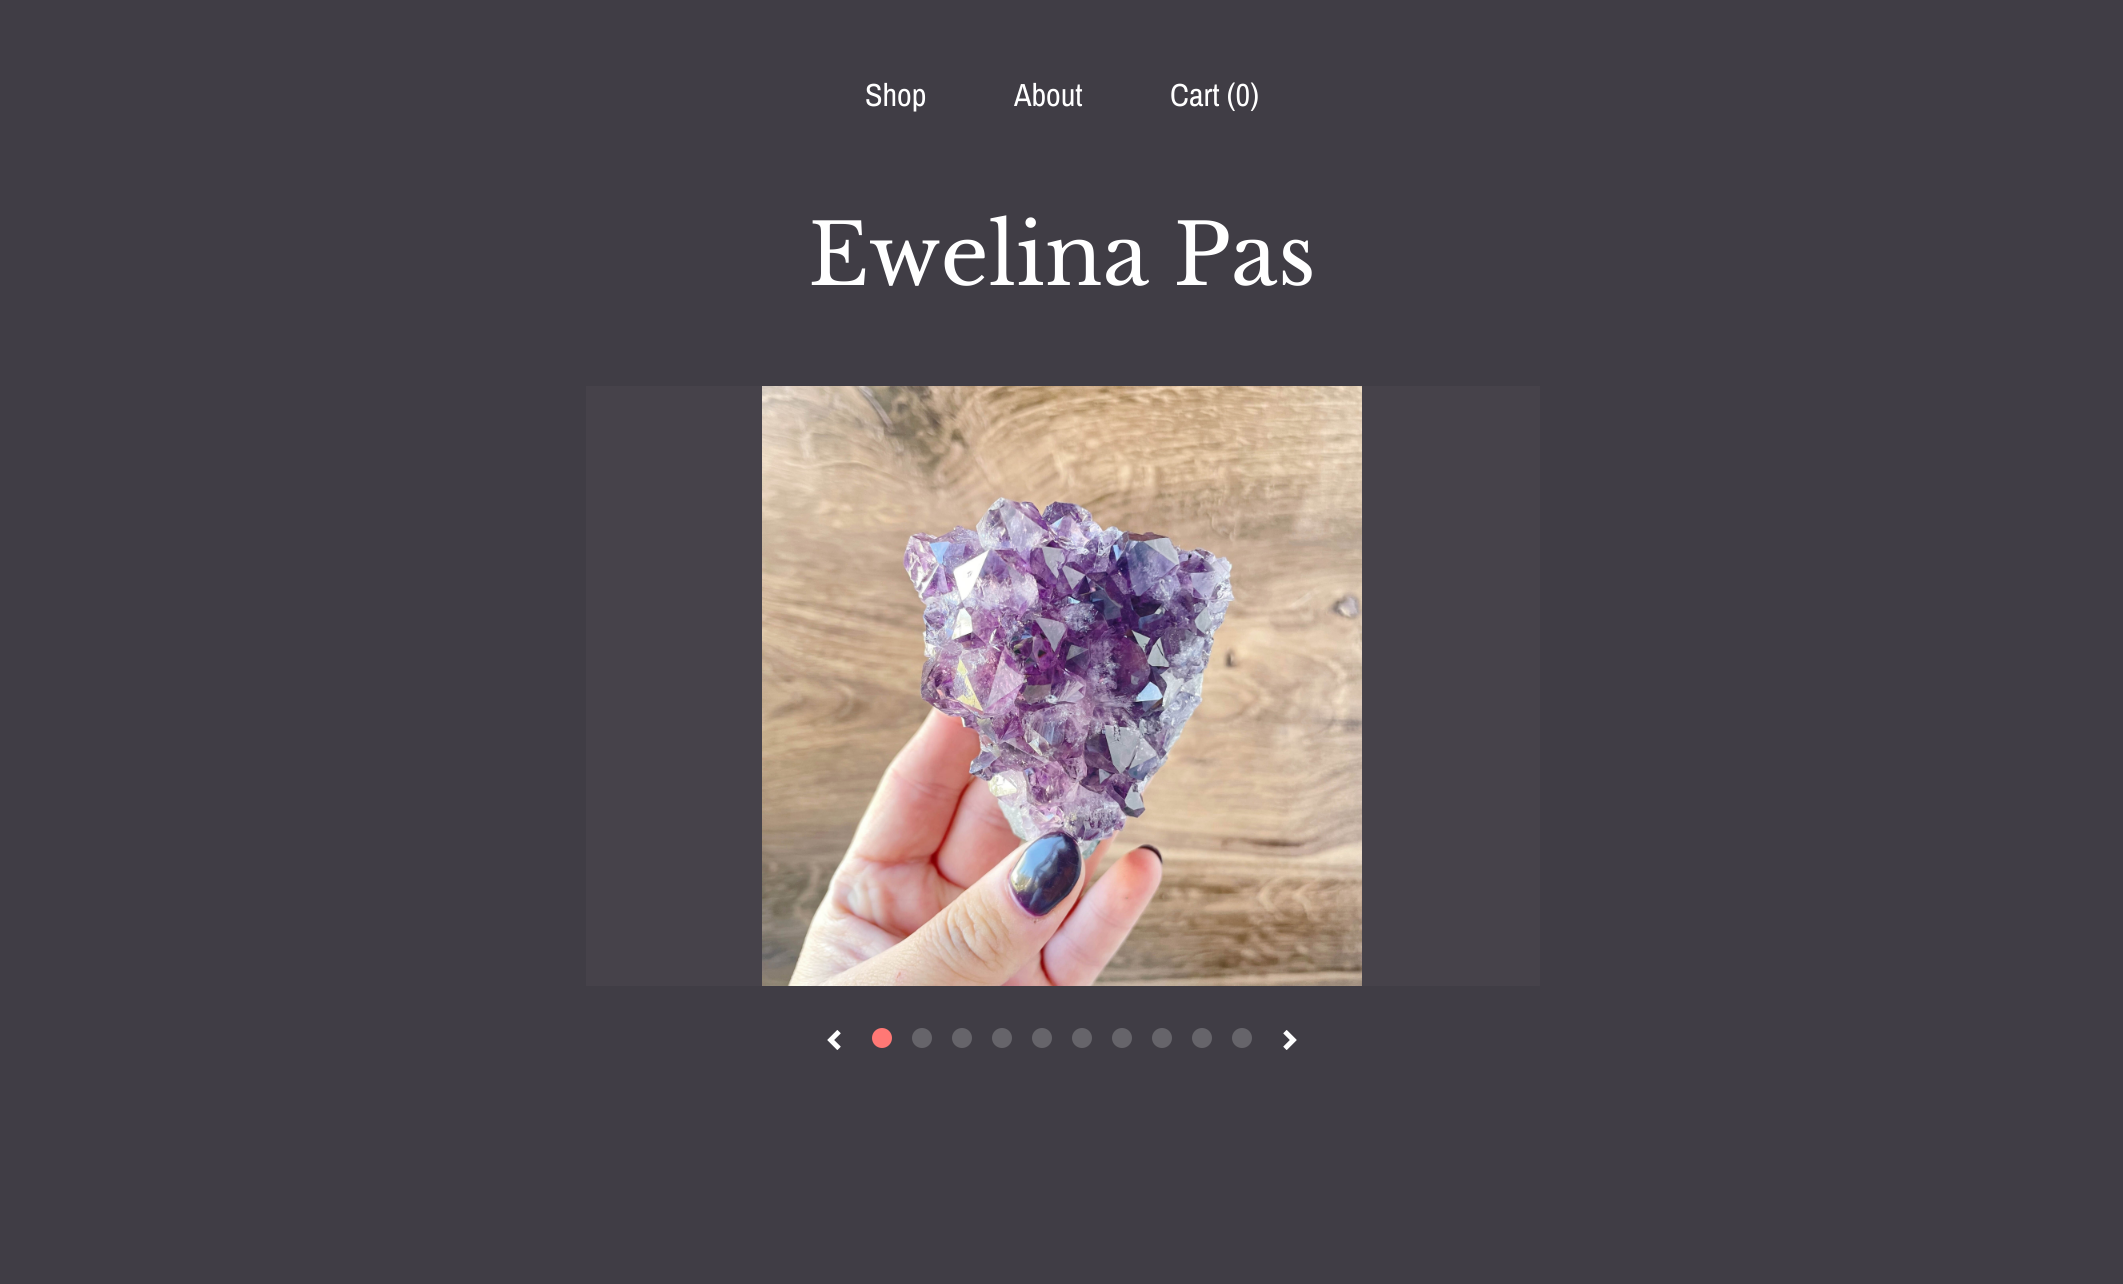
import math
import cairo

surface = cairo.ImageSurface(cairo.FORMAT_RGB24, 2123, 1284)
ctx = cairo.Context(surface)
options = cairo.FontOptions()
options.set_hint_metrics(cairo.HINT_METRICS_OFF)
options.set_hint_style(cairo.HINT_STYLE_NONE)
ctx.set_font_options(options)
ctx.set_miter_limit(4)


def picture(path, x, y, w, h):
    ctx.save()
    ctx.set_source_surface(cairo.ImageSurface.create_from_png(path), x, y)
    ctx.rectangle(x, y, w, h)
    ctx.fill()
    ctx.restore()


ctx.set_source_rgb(0.251, 0.239, 0.271)
ctx.paint()
ctx.select_font_face("Archivo Narrow")
ctx.set_font_size(32)
ctx.set_source_rgb(1, 1, 1)
ctx.move_to(865, 106)
ctx.show_text("Shop")
ctx.move_to(1014, 106)
ctx.show_text("About")
ctx.move_to(1170, 106)
ctx.show_text("Cart (0)")
ctx.select_font_face("Libre Baskerville")
ctx.set_font_size(84)
ctx.move_to(808, 285)
ctx.show_text("Ewelina Pas")
ctx.set_source_rgb(0.275, 0.259, 0.29)
ctx.rectangle(586, 386, 954, 600)
ctx.fill()
picture("img1.png", 762, 386, 600, 600)
picture("img2.png", 827, 1030, 14, 20)
ctx.set_source_rgb(1, 0.471, 0.459)
ctx.arc(882, 1038, 10, 0, 2 * math.pi)
ctx.fill()
ctx.set_source_rgb(0.4, 0.392, 0.416)
ctx.arc(922, 1038, 10, 0, 2 * math.pi)
ctx.fill()
ctx.arc(962, 1038, 10, 0, 2 * math.pi)
ctx.fill()
ctx.arc(1002, 1038, 10, 0, 2 * math.pi)
ctx.fill()
ctx.arc(1042, 1038, 10, 0, 2 * math.pi)
ctx.fill()
ctx.arc(1082, 1038, 10, 0, 2 * math.pi)
ctx.fill()
ctx.arc(1122, 1038, 10, 0, 2 * math.pi)
ctx.fill()
ctx.arc(1162, 1038, 10, 0, 2 * math.pi)
ctx.fill()
ctx.arc(1202, 1038, 10, 0, 2 * math.pi)
ctx.fill()
ctx.arc(1242, 1038, 10, 0, 2 * math.pi)
ctx.fill()
picture("img3.png", 1283, 1030, 14, 20)
surface.write_to_png("page.png")
